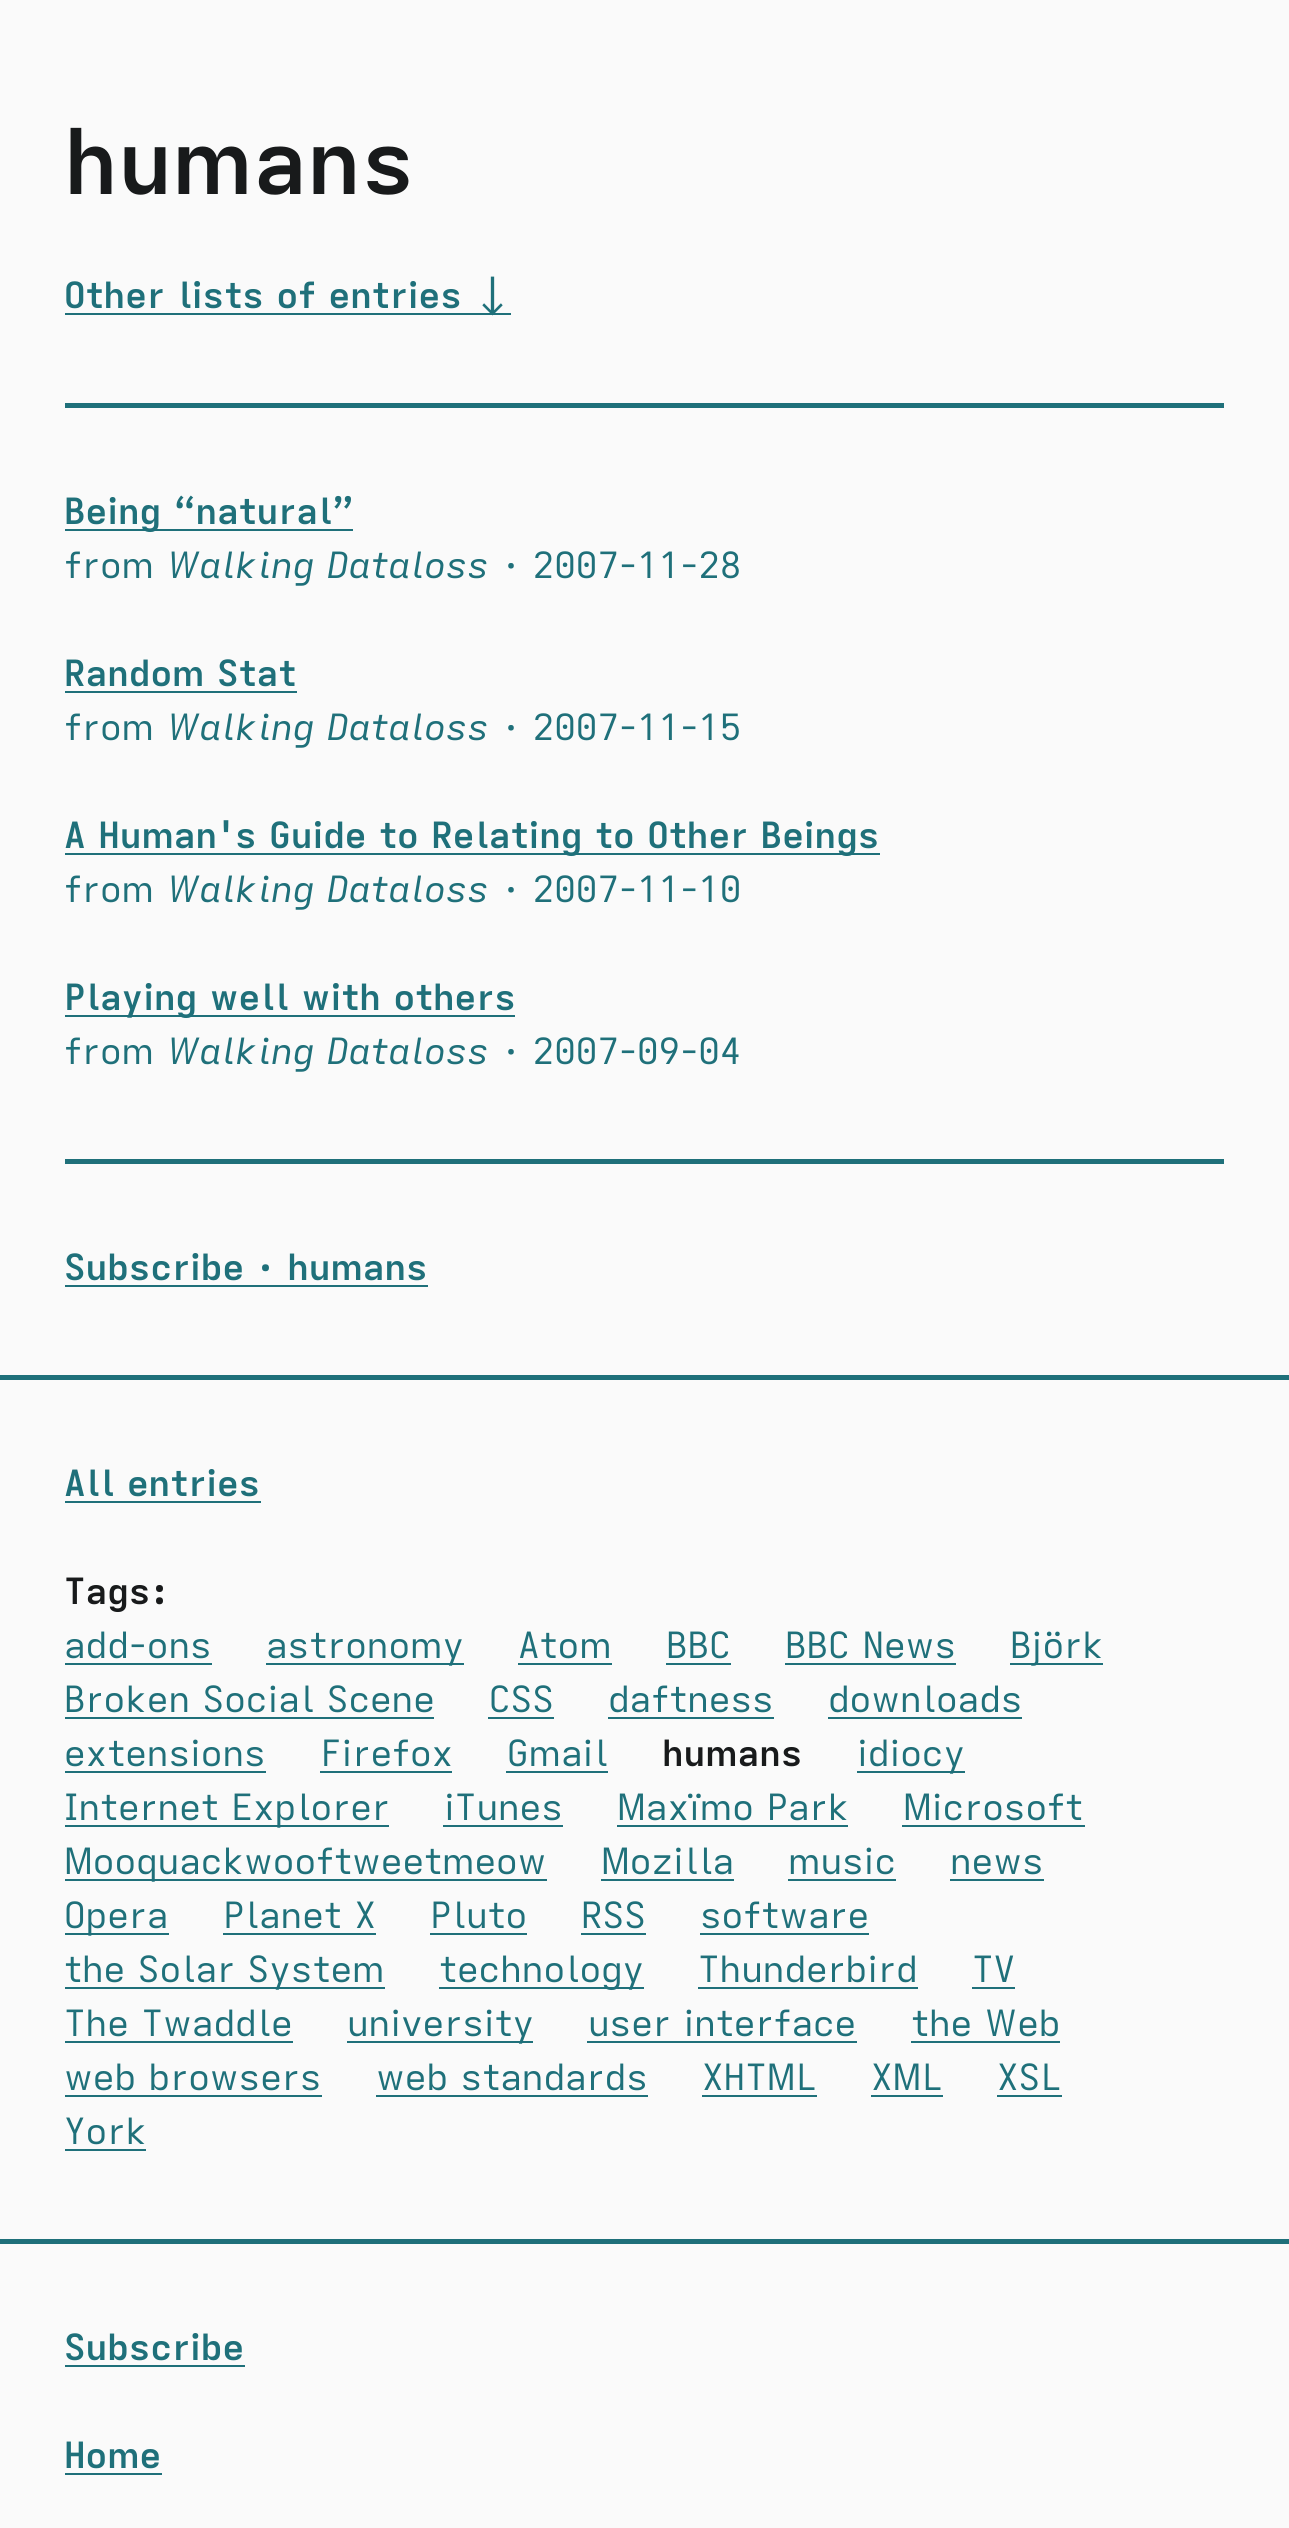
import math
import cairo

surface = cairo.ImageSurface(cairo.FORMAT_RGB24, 1289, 2528)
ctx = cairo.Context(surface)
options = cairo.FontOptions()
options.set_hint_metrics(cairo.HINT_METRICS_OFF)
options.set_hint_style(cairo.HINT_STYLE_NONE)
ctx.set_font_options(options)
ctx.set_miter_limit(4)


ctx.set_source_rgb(0.98, 0.98, 0.98)
ctx.paint()
ctx.select_font_face("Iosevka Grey", cairo.FONT_SLANT_NORMAL, cairo.FONT_WEIGHT_BOLD)
ctx.set_font_size(90)
ctx.set_source_rgb(0.094, 0.102, 0.106)
ctx.move_to(64, 194)
ctx.show_text("humans")
ctx.set_source_rgb(0.122, 0.439, 0.478)
ctx.rectangle(65, 313, 446, 2)
ctx.fill()
ctx.set_font_size(36)
ctx.move_to(64, 308)
ctx.show_text("Other lists of entries ↓")
ctx.rectangle(65, 403, 1159, 5)
ctx.fill()
ctx.rectangle(65, 529, 288, 2)
ctx.fill()
ctx.move_to(64, 524)
ctx.show_text("Being “natural”")
ctx.select_font_face("Iosevka Grey")
ctx.move_to(64, 578)
ctx.show_text("from")
ctx.select_font_face("Iosevka Grey", cairo.FONT_SLANT_ITALIC)
ctx.move_to(167, 578)
ctx.show_text("Walking Dataloss")
ctx.select_font_face("Iosevka Grey")
ctx.move_to(502, 578)
ctx.show_text("· 2007-11-28")
ctx.select_font_face("Iosevka Grey", cairo.FONT_SLANT_NORMAL, cairo.FONT_WEIGHT_BOLD)
ctx.move_to(64, 686)
ctx.show_text("Random Stat")
ctx.rectangle(65, 691, 232, 2)
ctx.fill()
ctx.select_font_face("Iosevka Grey")
ctx.move_to(64, 740)
ctx.show_text("from")
ctx.select_font_face("Iosevka Grey", cairo.FONT_SLANT_ITALIC)
ctx.move_to(167, 740)
ctx.show_text("Walking Dataloss")
ctx.select_font_face("Iosevka Grey")
ctx.move_to(502, 740)
ctx.show_text("· 2007-11-15")
ctx.rectangle(65, 853, 815, 2)
ctx.fill()
ctx.select_font_face("Iosevka Grey", cairo.FONT_SLANT_NORMAL, cairo.FONT_WEIGHT_BOLD)
ctx.move_to(64, 848)
ctx.show_text("A Human's Guide to Relating to Other Beings")
ctx.select_font_face("Iosevka Grey")
ctx.move_to(64, 902)
ctx.show_text("from")
ctx.select_font_face("Iosevka Grey", cairo.FONT_SLANT_ITALIC)
ctx.move_to(167, 902)
ctx.show_text("Walking Dataloss")
ctx.select_font_face("Iosevka Grey")
ctx.move_to(502, 902)
ctx.show_text("· 2007-11-10")
ctx.rectangle(65, 1015, 450, 2)
ctx.fill()
ctx.select_font_face("Iosevka Grey", cairo.FONT_SLANT_NORMAL, cairo.FONT_WEIGHT_BOLD)
ctx.move_to(64, 1010)
ctx.show_text("Playing well with others")
ctx.select_font_face("Iosevka Grey")
ctx.move_to(64, 1064)
ctx.show_text("from")
ctx.select_font_face("Iosevka Grey", cairo.FONT_SLANT_ITALIC)
ctx.move_to(167, 1064)
ctx.show_text("Walking Dataloss")
ctx.select_font_face("Iosevka Grey")
ctx.move_to(502, 1064)
ctx.show_text("· 2007-09-04")
ctx.rectangle(65, 1159, 1159, 5)
ctx.fill()
ctx.select_font_face("Iosevka Grey", cairo.FONT_SLANT_NORMAL, cairo.FONT_WEIGHT_BOLD)
ctx.move_to(64, 1280)
ctx.show_text("Subscribe · humans")
ctx.rectangle(65, 1285, 363, 2)
ctx.fill()
ctx.rectangle(0, 1375, 1289, 5)
ctx.fill()
ctx.move_to(64, 1496)
ctx.show_text("All entries")
ctx.rectangle(65, 1501, 196, 2)
ctx.fill()
ctx.set_source_rgb(0.094, 0.102, 0.106)
ctx.move_to(64, 1604)
ctx.show_text("Tags:")
ctx.select_font_face("Iosevka Grey")
ctx.set_source_rgb(0.122, 0.439, 0.478)
ctx.move_to(64, 1658)
ctx.show_text("add-ons")
ctx.rectangle(65, 1663, 147, 2)
ctx.fill()
ctx.rectangle(266, 1663, 198, 2)
ctx.fill()
ctx.move_to(266, 1658)
ctx.show_text("astronomy")
ctx.move_to(518, 1658)
ctx.show_text("Atom")
ctx.rectangle(518, 1663, 94, 2)
ctx.fill()
ctx.move_to(666, 1658)
ctx.show_text("BBC")
ctx.rectangle(666, 1663, 65, 2)
ctx.fill()
ctx.move_to(785, 1658)
ctx.show_text("BBC News")
ctx.rectangle(785, 1663, 171, 2)
ctx.fill()
ctx.rectangle(1010, 1663, 93, 2)
ctx.fill()
ctx.move_to(1010, 1658)
ctx.show_text("Björk")
ctx.move_to(64, 1712)
ctx.show_text("Broken Social Scene")
ctx.rectangle(65, 1717, 369, 2)
ctx.fill()
ctx.move_to(489, 1712)
ctx.show_text("CSS")
ctx.rectangle(488, 1717, 66, 2)
ctx.fill()
ctx.move_to(608, 1712)
ctx.show_text("daftness")
ctx.rectangle(608, 1717, 166, 2)
ctx.fill()
ctx.move_to(828, 1712)
ctx.show_text("downloads")
ctx.rectangle(828, 1717, 194, 2)
ctx.fill()
ctx.move_to(64, 1766)
ctx.show_text("extensions")
ctx.rectangle(65, 1771, 201, 2)
ctx.fill()
ctx.move_to(320, 1766)
ctx.show_text("Firefox")
ctx.rectangle(320, 1771, 132, 2)
ctx.fill()
ctx.move_to(507, 1766)
ctx.show_text("Gmail")
ctx.rectangle(506, 1771, 102, 2)
ctx.fill()
ctx.select_font_face("Iosevka Grey", cairo.FONT_SLANT_NORMAL, cairo.FONT_WEIGHT_BOLD)
ctx.set_source_rgb(0.094, 0.102, 0.106)
ctx.move_to(662, 1766)
ctx.show_text("humans")
ctx.set_source_rgb(0.122, 0.439, 0.478)
ctx.rectangle(857, 1771, 108, 2)
ctx.fill()
ctx.select_font_face("Iosevka Grey")
ctx.move_to(857, 1766)
ctx.show_text("idiocy")
ctx.rectangle(65, 1825, 324, 2)
ctx.fill()
ctx.move_to(64, 1820)
ctx.show_text("Internet Explorer")
ctx.move_to(444, 1820)
ctx.show_text("iTunes")
ctx.rectangle(443, 1825, 120, 2)
ctx.fill()
ctx.move_to(617, 1820)
ctx.show_text("Maxïmo Park")
ctx.rectangle(617, 1825, 231, 2)
ctx.fill()
ctx.move_to(903, 1820)
ctx.show_text("Microsoft")
ctx.rectangle(902, 1825, 183, 2)
ctx.fill()
ctx.rectangle(65, 1879, 482, 2)
ctx.fill()
ctx.move_to(64, 1874)
ctx.show_text("Mooquackwooftweetmeow")
ctx.move_to(601, 1874)
ctx.show_text("Mozilla")
ctx.rectangle(601, 1879, 133, 2)
ctx.fill()
ctx.move_to(788, 1874)
ctx.show_text("music")
ctx.rectangle(788, 1879, 108, 2)
ctx.fill()
ctx.move_to(950, 1874)
ctx.show_text("news")
ctx.rectangle(950, 1879, 94, 2)
ctx.fill()
ctx.rectangle(65, 1933, 104, 2)
ctx.fill()
ctx.move_to(64, 1928)
ctx.show_text("Opera")
ctx.move_to(223, 1928)
ctx.show_text("Planet X")
ctx.rectangle(223, 1933, 153, 2)
ctx.fill()
ctx.move_to(430, 1928)
ctx.show_text("Pluto")
ctx.rectangle(430, 1933, 97, 2)
ctx.fill()
ctx.move_to(581, 1928)
ctx.show_text("RSS")
ctx.rectangle(581, 1933, 65, 2)
ctx.fill()
ctx.move_to(700, 1928)
ctx.show_text("software")
ctx.rectangle(700, 1933, 169, 2)
ctx.fill()
ctx.rectangle(65, 1987, 320, 2)
ctx.fill()
ctx.move_to(64, 1982)
ctx.show_text("the Solar System")
ctx.rectangle(439, 1987, 205, 2)
ctx.fill()
ctx.move_to(439, 1982)
ctx.show_text("technology")
ctx.move_to(698, 1982)
ctx.show_text("Thunderbird")
ctx.rectangle(698, 1987, 220, 2)
ctx.fill()
ctx.move_to(972, 1982)
ctx.show_text("TV")
ctx.rectangle(972, 1987, 43, 2)
ctx.fill()
ctx.move_to(64, 2036)
ctx.show_text("The Twaddle")
ctx.rectangle(65, 2041, 228, 2)
ctx.fill()
ctx.rectangle(347, 2041, 186, 2)
ctx.fill()
ctx.move_to(347, 2036)
ctx.show_text("university")
ctx.move_to(588, 2036)
ctx.show_text("user interface")
ctx.rectangle(587, 2041, 270, 2)
ctx.fill()
ctx.move_to(911, 2036)
ctx.show_text("the Web")
ctx.rectangle(911, 2041, 149, 2)
ctx.fill()
ctx.move_to(64, 2090)
ctx.show_text("web browsers")
ctx.rectangle(65, 2095, 257, 2)
ctx.fill()
ctx.move_to(376, 2090)
ctx.show_text("web standards")
ctx.rectangle(376, 2095, 272, 2)
ctx.fill()
ctx.move_to(702, 2090)
ctx.show_text("XHTML")
ctx.rectangle(702, 2095, 115, 2)
ctx.fill()
ctx.move_to(871, 2090)
ctx.show_text("XML")
ctx.rectangle(871, 2095, 72, 2)
ctx.fill()
ctx.move_to(997, 2090)
ctx.show_text("XSL")
ctx.rectangle(997, 2095, 65, 2)
ctx.fill()
ctx.move_to(64, 2144)
ctx.show_text("York")
ctx.rectangle(65, 2149, 81, 2)
ctx.fill()
ctx.rectangle(0, 2239, 1289, 5)
ctx.fill()
ctx.select_font_face("Iosevka Grey", cairo.FONT_SLANT_NORMAL, cairo.FONT_WEIGHT_BOLD)
ctx.move_to(64, 2360)
ctx.show_text("Subscribe")
ctx.rectangle(65, 2365, 180, 2)
ctx.fill()
ctx.move_to(64, 2468)
ctx.show_text("Home")
ctx.rectangle(65, 2473, 97, 2)
ctx.fill()
surface.write_to_png("page.png")
